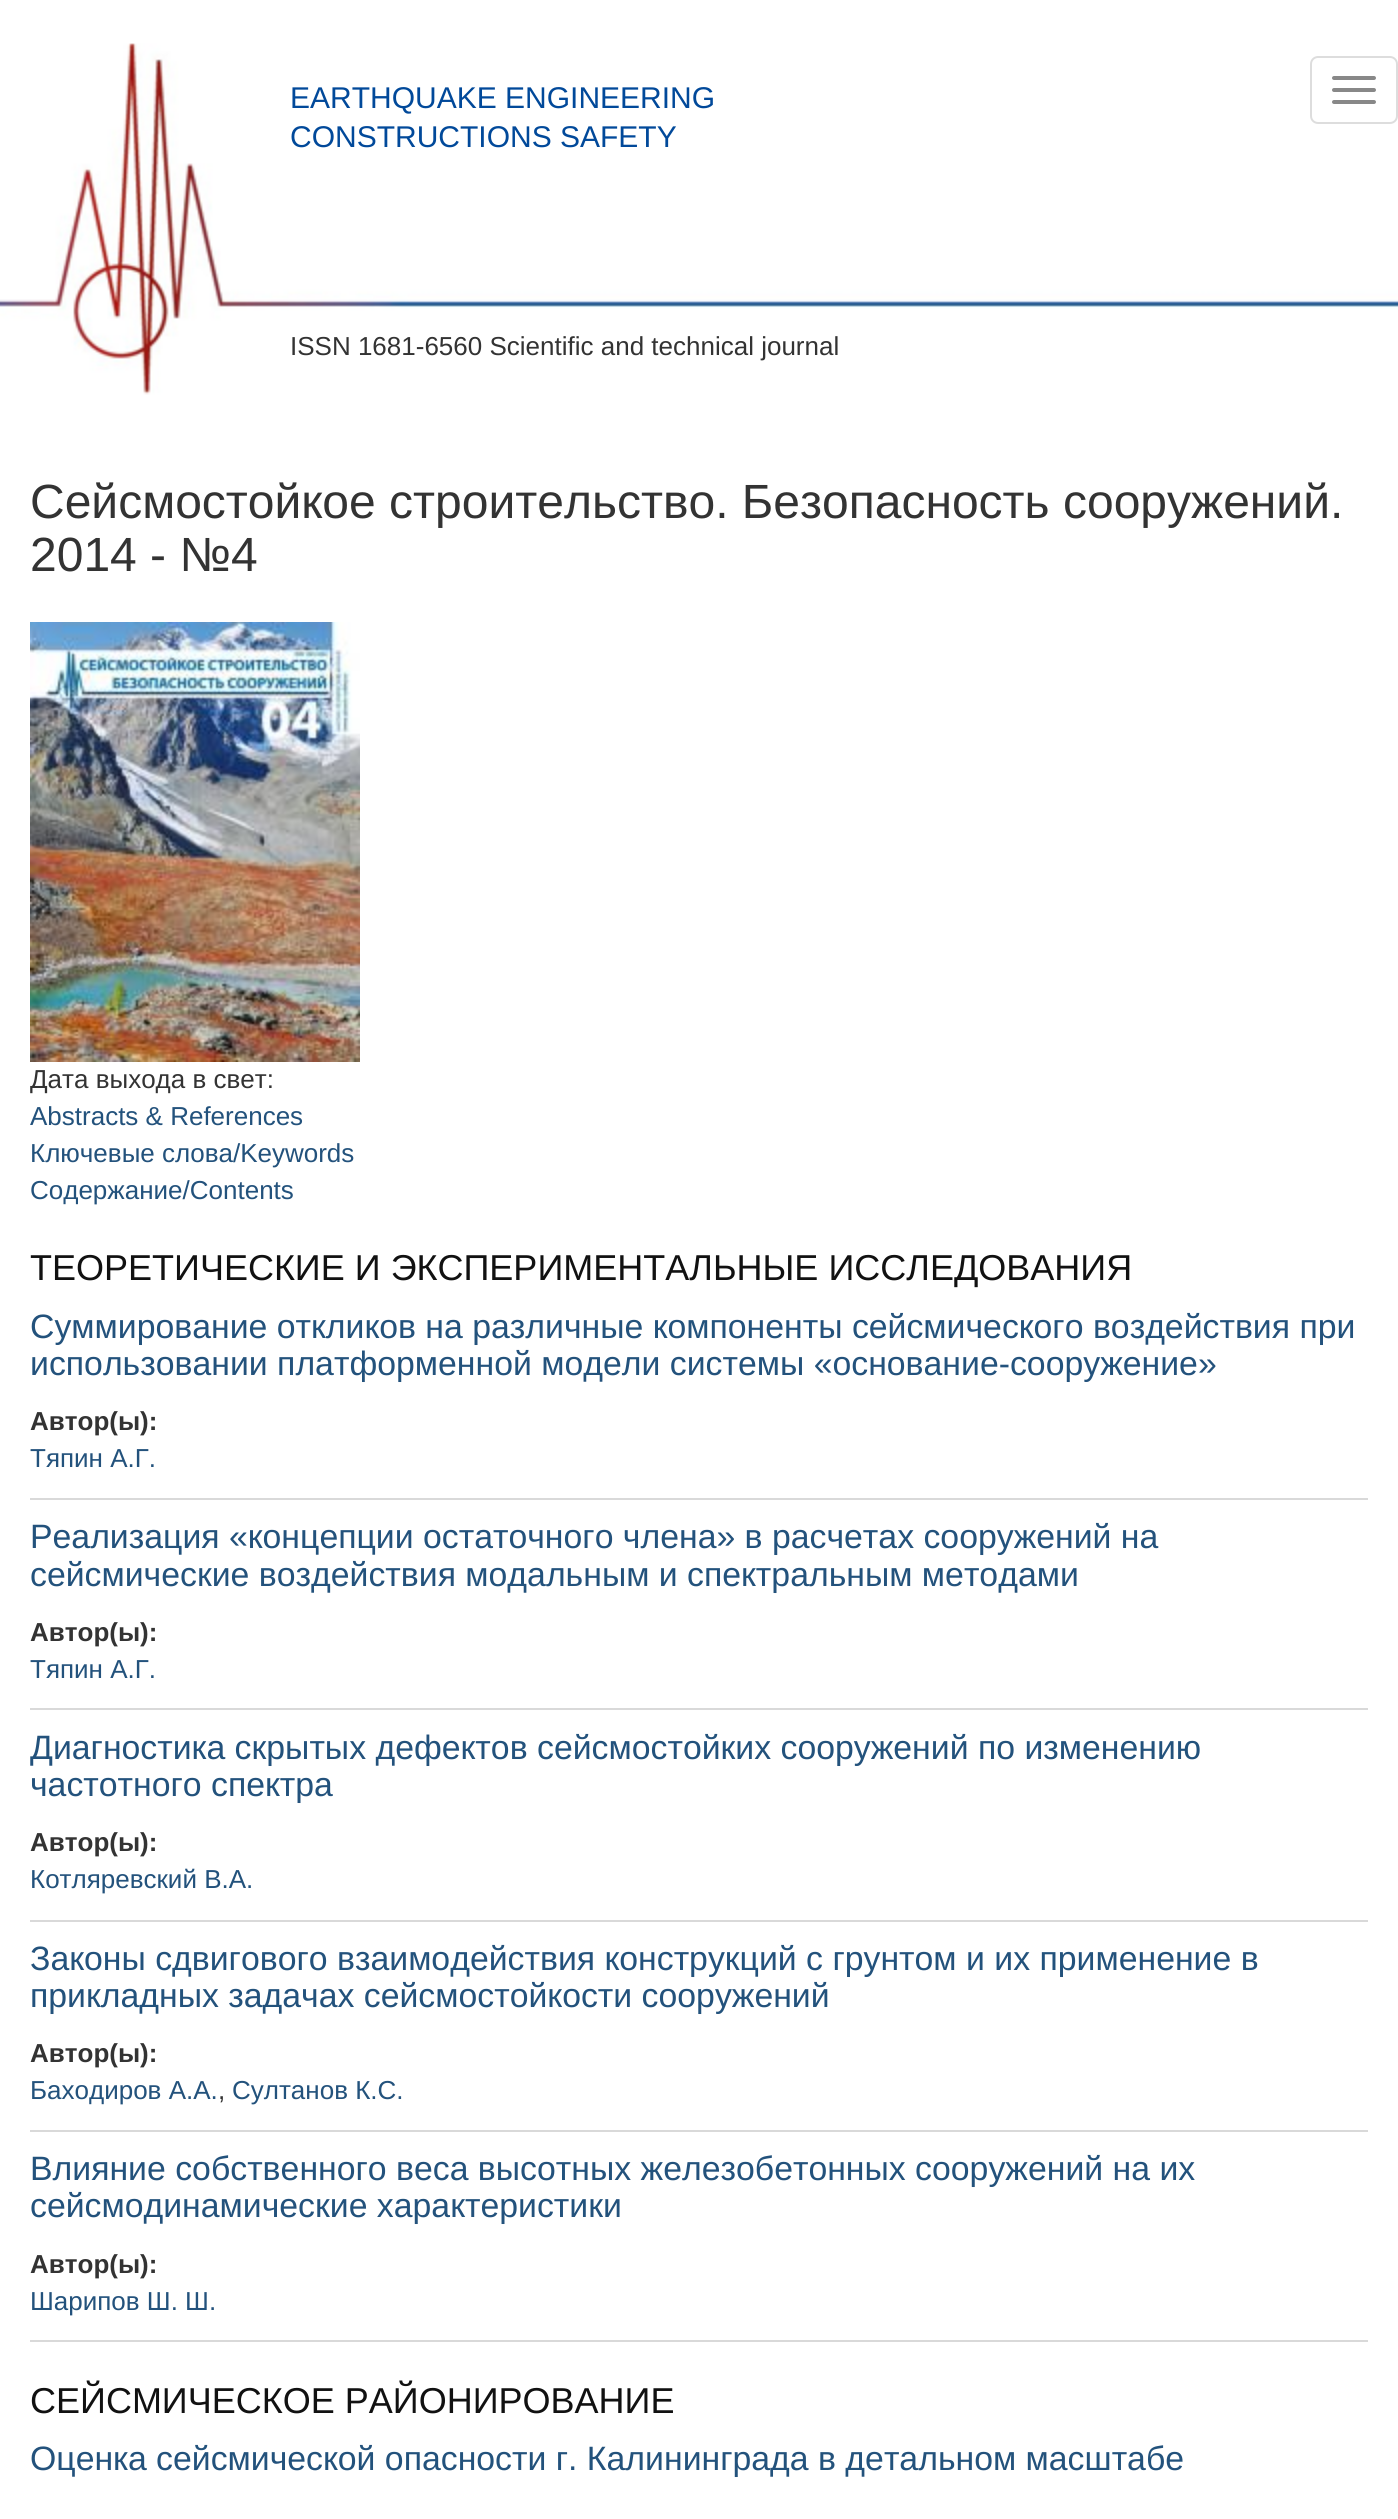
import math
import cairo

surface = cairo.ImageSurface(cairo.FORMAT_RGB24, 1398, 2519)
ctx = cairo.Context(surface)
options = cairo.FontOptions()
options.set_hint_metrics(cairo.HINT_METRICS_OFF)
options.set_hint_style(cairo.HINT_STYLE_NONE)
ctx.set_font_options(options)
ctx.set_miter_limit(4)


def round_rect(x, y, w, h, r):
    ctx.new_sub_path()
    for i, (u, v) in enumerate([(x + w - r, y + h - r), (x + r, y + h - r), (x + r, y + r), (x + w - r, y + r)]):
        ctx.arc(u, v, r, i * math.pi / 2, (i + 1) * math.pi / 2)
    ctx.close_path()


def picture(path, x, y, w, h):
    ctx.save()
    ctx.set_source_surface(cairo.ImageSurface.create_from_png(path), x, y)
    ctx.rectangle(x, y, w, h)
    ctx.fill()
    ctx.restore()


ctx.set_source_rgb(1, 1, 1)
ctx.paint()
picture("img1.png", 0, 43, 1398, 352)
ctx.select_font_face("Liberation Sans")
ctx.set_font_size(30)
ctx.set_source_rgb(0.004, 0.286, 0.604)
ctx.move_to(290, 108)
ctx.show_text("EARTHQUAKE ENGINEERING")
ctx.move_to(290, 147)
ctx.show_text("CONSTRUCTIONS SAFETY")
round_rect(1311, 57, 86, 66, 7)
ctx.set_source_rgb(0.867, 0.867, 0.867)
ctx.stroke()
ctx.set_source_rgb(0.533, 0.533, 0.533)
round_rect(1332, 76, 44, 4, 2)
ctx.fill()
round_rect(1332, 88, 44, 4, 2)
ctx.fill()
round_rect(1332, 100, 44, 4, 2)
ctx.fill()
ctx.set_font_size(26)
ctx.set_source_rgb(0.2, 0.2, 0.2)
ctx.move_to(290, 355)
ctx.show_text("ISSN 1681-6560 Scientific and technical journal")
ctx.set_font_size(48)
ctx.move_to(30, 518)
ctx.show_text("Сейсмостойкое строительство. Безопасность сооружений.")
ctx.move_to(30, 571)
ctx.show_text("2014 - №4")
picture("img2.png", 30, 622, 330, 440)
ctx.set_font_size(26)
ctx.move_to(30, 1088)
ctx.show_text("Дата выхода в свет:")
ctx.set_source_rgb(0.137, 0.322, 0.486)
ctx.move_to(30, 1125)
ctx.show_text("Abstracts & References")
ctx.move_to(30, 1162)
ctx.show_text("Ключевые слова/Keywords")
ctx.move_to(30, 1199)
ctx.show_text("Содержание/Contents")
ctx.set_font_size(36)
ctx.set_source_rgb(0.067, 0.067, 0.067)
ctx.move_to(30, 1280)
ctx.show_text("ТЕОРЕТИЧЕСКИЕ И ЭКСПЕРИМЕНТАЛЬНЫЕ ИССЛЕДОВАНИЯ")
ctx.set_source_rgb(0.851, 0.851, 0.851)
ctx.rectangle(30, 1498, 1338, 2)
ctx.fill()
ctx.set_font_size(33.8)
ctx.set_source_rgb(0.137, 0.322, 0.486)
ctx.move_to(30, 1338)
ctx.show_text("Суммирование откликов на различные компоненты сейсмического воздействия при")
ctx.move_to(30, 1375)
ctx.show_text("использовании платформенной модели системы «основание-сооружение»")
ctx.select_font_face("Liberation Sans", cairo.FONT_SLANT_NORMAL, cairo.FONT_WEIGHT_BOLD)
ctx.set_font_size(26)
ctx.set_source_rgb(0.2, 0.2, 0.2)
ctx.move_to(30, 1430)
ctx.show_text("Автор(ы):")
ctx.select_font_face("Liberation Sans")
ctx.set_source_rgb(0.137, 0.322, 0.486)
ctx.move_to(30, 1467)
ctx.show_text("Тяпин А.Г.")
ctx.set_source_rgb(0.851, 0.851, 0.851)
ctx.rectangle(30, 1708, 1338, 2)
ctx.fill()
ctx.set_font_size(33.8)
ctx.set_source_rgb(0.137, 0.322, 0.486)
ctx.move_to(30, 1548)
ctx.show_text("Реализация «концепции остаточного члена» в расчетах сооружений на")
ctx.move_to(30, 1586)
ctx.show_text("сейсмические воздействия модальным и спектральным методами")
ctx.select_font_face("Liberation Sans", cairo.FONT_SLANT_NORMAL, cairo.FONT_WEIGHT_BOLD)
ctx.set_font_size(26)
ctx.set_source_rgb(0.2, 0.2, 0.2)
ctx.move_to(30, 1641)
ctx.show_text("Автор(ы):")
ctx.select_font_face("Liberation Sans")
ctx.set_source_rgb(0.137, 0.322, 0.486)
ctx.move_to(30, 1678)
ctx.show_text("Тяпин А.Г.")
ctx.set_source_rgb(0.851, 0.851, 0.851)
ctx.rectangle(30, 1920, 1338, 2)
ctx.fill()
ctx.set_font_size(33.8)
ctx.set_source_rgb(0.137, 0.322, 0.486)
ctx.move_to(30, 1759)
ctx.show_text("Диагностика скрытых дефектов сейсмостойких сооружений по изменению")
ctx.move_to(30, 1796)
ctx.show_text("частотного спектра")
ctx.select_font_face("Liberation Sans", cairo.FONT_SLANT_NORMAL, cairo.FONT_WEIGHT_BOLD)
ctx.set_font_size(26)
ctx.set_source_rgb(0.2, 0.2, 0.2)
ctx.move_to(30, 1851)
ctx.show_text("Автор(ы):")
ctx.select_font_face("Liberation Sans")
ctx.set_source_rgb(0.137, 0.322, 0.486)
ctx.move_to(30, 1888)
ctx.show_text("Котляревский В.А.")
ctx.set_source_rgb(0.851, 0.851, 0.851)
ctx.rectangle(30, 2130, 1338, 2)
ctx.fill()
ctx.set_font_size(33.8)
ctx.set_source_rgb(0.137, 0.322, 0.486)
ctx.move_to(30, 1970)
ctx.show_text("Законы сдвигового взаимодействия конструкций с грунтом и их применение в")
ctx.move_to(30, 2007)
ctx.show_text("прикладных задачах сейсмостойкости сооружений")
ctx.select_font_face("Liberation Sans", cairo.FONT_SLANT_NORMAL, cairo.FONT_WEIGHT_BOLD)
ctx.set_font_size(26)
ctx.set_source_rgb(0.2, 0.2, 0.2)
ctx.move_to(30, 2062)
ctx.show_text("Автор(ы):")
ctx.select_font_face("Liberation Sans")
ctx.set_source_rgb(0.137, 0.322, 0.486)
ctx.move_to(30, 2099)
ctx.show_text("Баходиров А.А.")
ctx.set_source_rgb(0.2, 0.2, 0.2)
ctx.move_to(218, 2099)
ctx.show_text(",")
ctx.set_source_rgb(0.137, 0.322, 0.486)
ctx.move_to(232, 2099)
ctx.show_text("Султанов К.С.")
ctx.set_source_rgb(0.851, 0.851, 0.851)
ctx.rectangle(30, 2340, 1338, 2)
ctx.fill()
ctx.set_font_size(33.8)
ctx.set_source_rgb(0.137, 0.322, 0.486)
ctx.move_to(30, 2180)
ctx.show_text("Влияние собственного веса высотных железобетонных сооружений на их")
ctx.move_to(30, 2217)
ctx.show_text("сейсмодинамические характеристики")
ctx.select_font_face("Liberation Sans", cairo.FONT_SLANT_NORMAL, cairo.FONT_WEIGHT_BOLD)
ctx.set_font_size(26)
ctx.set_source_rgb(0.2, 0.2, 0.2)
ctx.move_to(30, 2273)
ctx.show_text("Автор(ы):")
ctx.select_font_face("Liberation Sans")
ctx.set_source_rgb(0.137, 0.322, 0.486)
ctx.move_to(30, 2310)
ctx.show_text("Шарипов Ш. Ш.")
ctx.set_font_size(36)
ctx.set_source_rgb(0.067, 0.067, 0.067)
ctx.move_to(30, 2413)
ctx.show_text("СЕЙСМИЧЕСКОЕ РАЙОНИРОВАНИЕ")
ctx.set_font_size(33.8)
ctx.set_source_rgb(0.137, 0.322, 0.486)
ctx.move_to(30, 2470)
ctx.show_text("Оценка сейсмической опасности г. Калининграда в детальном масштабе")
surface.write_to_png("page.png")
